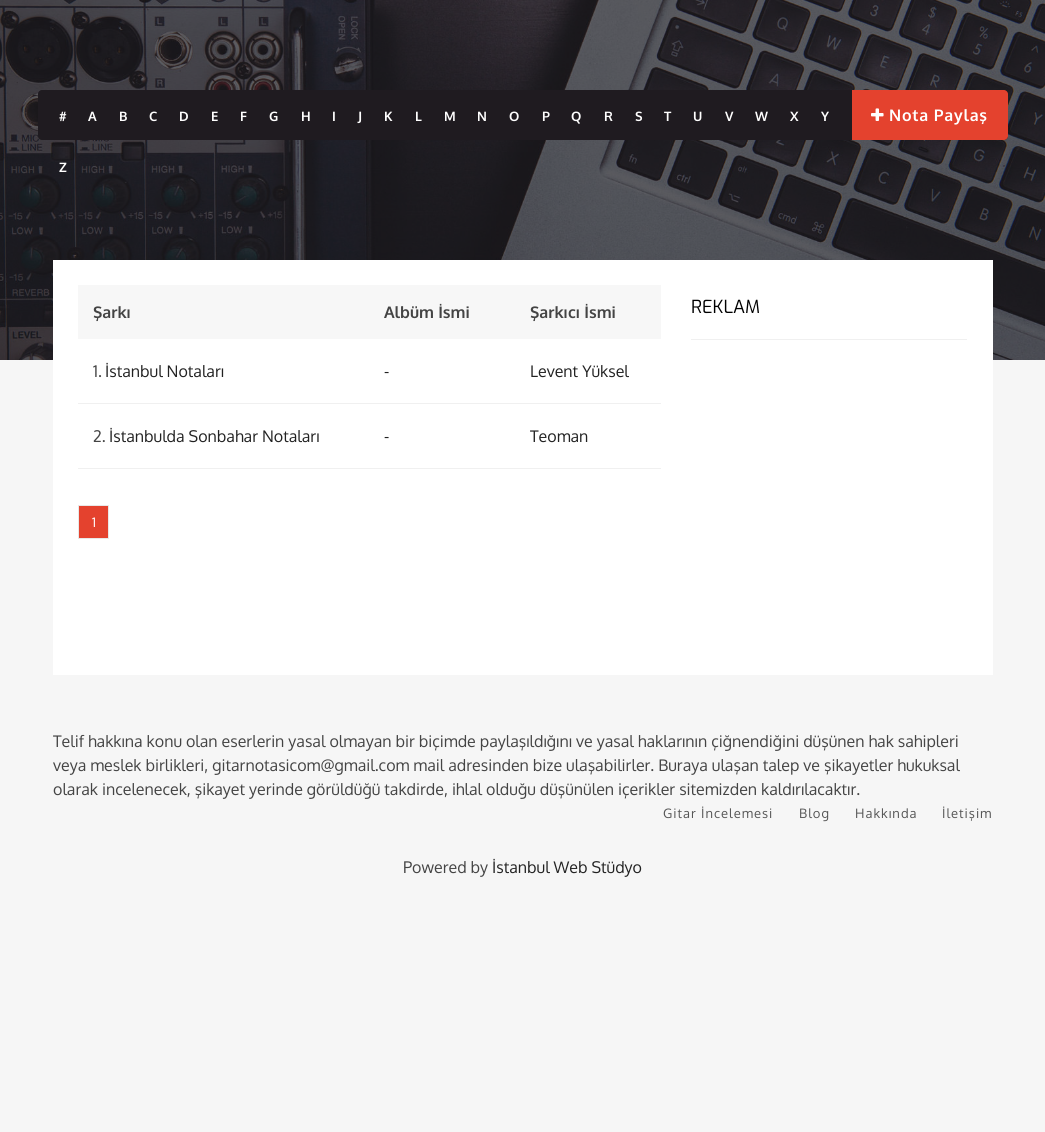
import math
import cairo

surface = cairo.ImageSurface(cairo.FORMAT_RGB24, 1045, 1132)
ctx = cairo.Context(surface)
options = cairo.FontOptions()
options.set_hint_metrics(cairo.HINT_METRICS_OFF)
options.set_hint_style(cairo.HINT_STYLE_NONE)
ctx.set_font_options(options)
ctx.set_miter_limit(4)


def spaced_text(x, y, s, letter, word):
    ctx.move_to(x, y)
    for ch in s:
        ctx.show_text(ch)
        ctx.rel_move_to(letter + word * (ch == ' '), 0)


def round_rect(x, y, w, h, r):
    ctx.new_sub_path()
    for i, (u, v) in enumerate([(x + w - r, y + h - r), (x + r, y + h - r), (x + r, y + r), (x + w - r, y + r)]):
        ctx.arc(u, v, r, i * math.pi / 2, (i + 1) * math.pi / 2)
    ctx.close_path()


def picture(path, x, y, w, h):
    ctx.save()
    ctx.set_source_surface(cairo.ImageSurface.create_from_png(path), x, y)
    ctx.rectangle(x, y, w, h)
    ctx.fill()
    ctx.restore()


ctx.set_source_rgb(0.961, 0.961, 0.961)
ctx.paint()
picture("img1.png", 0, 0, 1045, 360)
ctx.set_source_rgb(0.122, 0.106, 0.125)
round_rect(38, 90, 970, 50, 4)
ctx.fill()
ctx.select_font_face("Oxygen", cairo.FONT_SLANT_NORMAL, cairo.FONT_WEIGHT_BOLD)
ctx.set_font_size(13)
ctx.set_source_rgb(1, 1, 1)
ctx.move_to(59, 121)
ctx.show_text("#")
ctx.move_to(88, 121)
ctx.show_text("A")
ctx.move_to(119, 121)
ctx.show_text("B")
ctx.move_to(149, 121)
ctx.show_text("C")
ctx.move_to(179, 121)
ctx.show_text("D")
ctx.move_to(211, 121)
ctx.show_text("E")
ctx.move_to(240, 121)
ctx.show_text("F")
ctx.move_to(269, 121)
ctx.show_text("G")
ctx.move_to(301, 121)
ctx.show_text("H")
ctx.move_to(332, 121)
ctx.show_text("I")
ctx.move_to(358, 121)
ctx.show_text("J")
ctx.move_to(384, 121)
ctx.show_text("K")
ctx.move_to(415, 121)
ctx.show_text("L")
ctx.move_to(444, 121)
ctx.show_text("M")
ctx.move_to(477, 121)
ctx.show_text("N")
ctx.move_to(509, 121)
ctx.show_text("O")
ctx.move_to(542, 121)
ctx.show_text("P")
ctx.move_to(571, 121)
ctx.show_text("Q")
ctx.move_to(604, 121)
ctx.show_text("R")
ctx.move_to(635, 121)
ctx.show_text("S")
ctx.move_to(664, 121)
ctx.show_text("T")
ctx.move_to(693, 121)
ctx.show_text("U")
ctx.move_to(725, 121)
ctx.show_text("V")
ctx.move_to(755, 121)
ctx.show_text("W")
ctx.move_to(790, 121)
ctx.show_text("X")
ctx.move_to(821, 121)
ctx.show_text("Y")
ctx.move_to(59, 172)
ctx.show_text("Z")
ctx.set_source_rgb(0.894, 0.259, 0.18)
ctx.new_path()
ctx.move_to(852, 90)
ctx.line_to(1004, 90)
ctx.curve_to(1006, 90, 1008, 92, 1008, 94)
ctx.line_to(1008, 136)
ctx.curve_to(1008, 138, 1006, 140, 1004, 140)
ctx.line_to(852, 140)
ctx.close_path()
ctx.fill()
picture("img2.png", 871, 108, 13, 13)
ctx.set_font_size(16)
ctx.set_source_rgb(1, 1, 1)
spaced_text(889, 121, "Nota Paylaş", 0.75, 0)
ctx.rectangle(53, 260, 940, 415)
ctx.fill()
ctx.set_source_rgb(0.965, 0.965, 0.965)
ctx.rectangle(78, 285, 583, 54)
ctx.fill()
ctx.set_source_rgb(0.267, 0.267, 0.267)
ctx.move_to(93, 318)
ctx.show_text("Şarkı")
ctx.move_to(384, 318)
ctx.show_text("Albüm İsmi")
ctx.move_to(530, 318)
ctx.show_text("Şarkıcı İsmi")
ctx.set_source_rgb(0.941, 0.941, 0.941)
ctx.rectangle(78, 403, 583, 1)
ctx.fill()
ctx.select_font_face("Oxygen")
ctx.set_source_rgb(0.267, 0.267, 0.267)
ctx.move_to(93, 377)
ctx.show_text("1.")
ctx.set_source_rgb(0.133, 0.133, 0.133)
ctx.move_to(105, 377)
ctx.show_text("İstanbul Notaları")
ctx.move_to(384, 377)
ctx.show_text("-")
ctx.move_to(530, 377)
ctx.show_text("Levent Yüksel")
ctx.set_source_rgb(0.941, 0.941, 0.941)
ctx.rectangle(78, 468, 583, 1)
ctx.fill()
ctx.set_source_rgb(0.267, 0.267, 0.267)
ctx.move_to(93, 442)
ctx.show_text("2.")
ctx.set_source_rgb(0.133, 0.133, 0.133)
ctx.move_to(109, 442)
ctx.show_text("İstanbulda Sonbahar Notaları")
ctx.move_to(384, 442)
ctx.show_text("-")
ctx.move_to(530, 442)
ctx.show_text("Teoman")
ctx.set_source_rgb(0.894, 0.259, 0.18)
ctx.rectangle(78.5, 505.5, 30, 33)
ctx.fill_preserve()
ctx.set_source_rgb(0.91, 0.91, 0.91)
ctx.set_line_width(1)
ctx.stroke()
ctx.set_font_size(13)
ctx.set_source_rgb(1, 1, 1)
ctx.move_to(92, 527)
ctx.show_text("1")
ctx.set_source_rgb(0.941, 0.941, 0.941)
ctx.rectangle(691, 339, 276, 1)
ctx.fill()
ctx.select_font_face("Exo")
ctx.set_font_size(18)
ctx.set_source_rgb(0, 0, 0)
ctx.move_to(691, 313)
ctx.show_text("REKLAM")
ctx.select_font_face("Oxygen")
ctx.set_font_size(16)
ctx.set_source_rgb(0.267, 0.267, 0.267)
ctx.move_to(53, 747)
ctx.show_text("Telif hakkına konu olan eserlerin yasal olmayan bir biçimde paylaşıldığını ve yasal haklarının çiğnendiğini düşünen hak sahipleri")
ctx.move_to(53, 771)
ctx.show_text("veya meslek birlikleri, gitarnotasicom@gmail.com mail adresinden bize ulaşabilirler. Buraya ulaşan talep ve şikayetler hukuksal")
ctx.move_to(53, 795)
ctx.show_text("olarak incelenecek, şikayet yerinde görüldüğü takdirde, ihlal olduğu düşünülen içerikler sitemizden kaldırılacaktır.")
ctx.set_font_size(13)
ctx.set_source_rgb(0.333, 0.333, 0.333)
spaced_text(663, 818, "Gitar İncelemesi", 1, 0)
spaced_text(799, 818, "Blog", 1, 0)
spaced_text(855, 818, "Hakkında", 1, 0)
spaced_text(942, 818, "İletişim", 1, 0)
ctx.set_font_size(16)
ctx.set_source_rgb(0.267, 0.267, 0.267)
ctx.move_to(403, 873)
ctx.show_text("Powered by")
ctx.set_source_rgb(0.133, 0.133, 0.133)
ctx.move_to(492, 873)
ctx.show_text("İstanbul Web Stüdyo")
surface.write_to_png("page.png")
